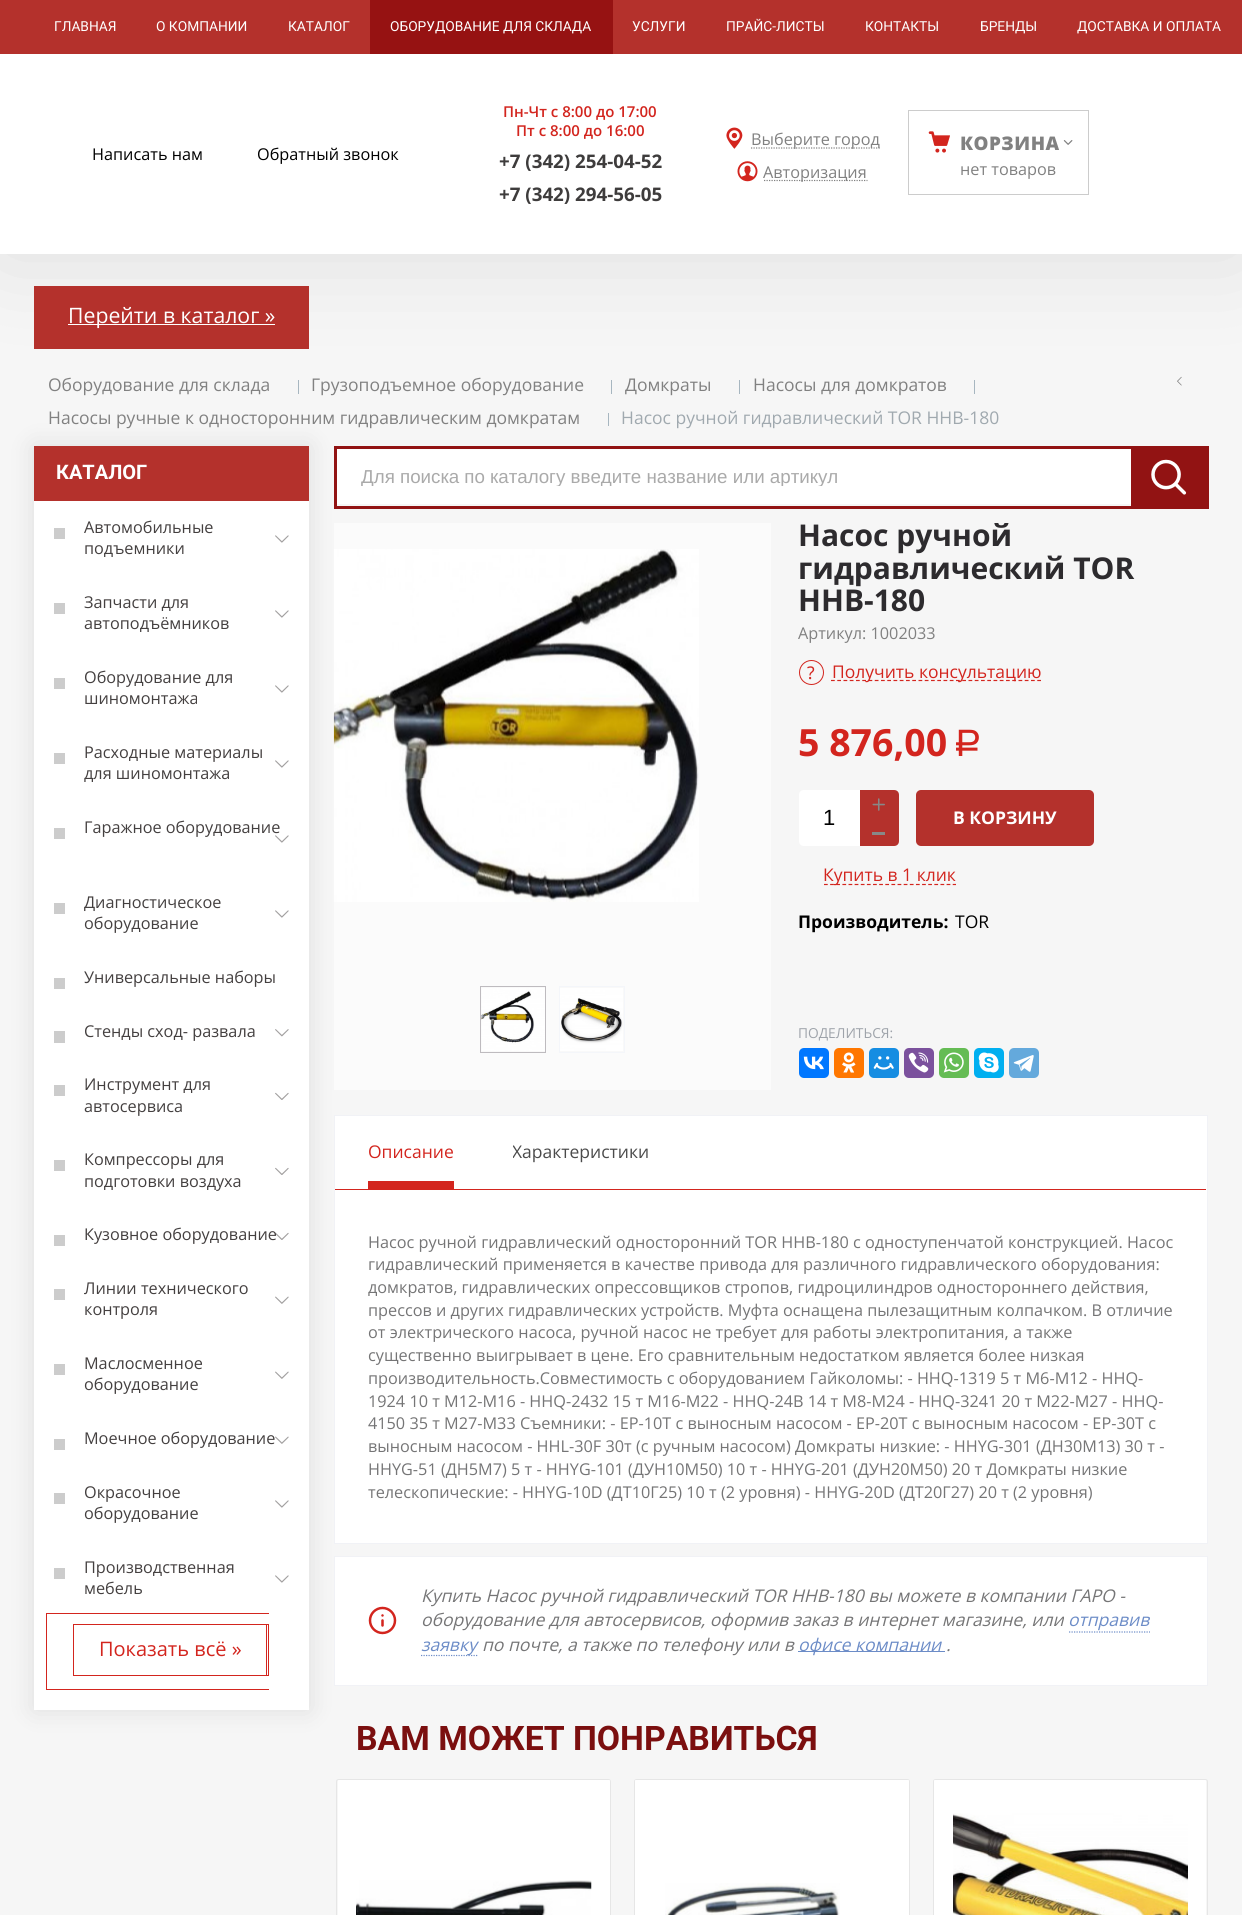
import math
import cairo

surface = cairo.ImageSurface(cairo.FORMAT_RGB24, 1242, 1915)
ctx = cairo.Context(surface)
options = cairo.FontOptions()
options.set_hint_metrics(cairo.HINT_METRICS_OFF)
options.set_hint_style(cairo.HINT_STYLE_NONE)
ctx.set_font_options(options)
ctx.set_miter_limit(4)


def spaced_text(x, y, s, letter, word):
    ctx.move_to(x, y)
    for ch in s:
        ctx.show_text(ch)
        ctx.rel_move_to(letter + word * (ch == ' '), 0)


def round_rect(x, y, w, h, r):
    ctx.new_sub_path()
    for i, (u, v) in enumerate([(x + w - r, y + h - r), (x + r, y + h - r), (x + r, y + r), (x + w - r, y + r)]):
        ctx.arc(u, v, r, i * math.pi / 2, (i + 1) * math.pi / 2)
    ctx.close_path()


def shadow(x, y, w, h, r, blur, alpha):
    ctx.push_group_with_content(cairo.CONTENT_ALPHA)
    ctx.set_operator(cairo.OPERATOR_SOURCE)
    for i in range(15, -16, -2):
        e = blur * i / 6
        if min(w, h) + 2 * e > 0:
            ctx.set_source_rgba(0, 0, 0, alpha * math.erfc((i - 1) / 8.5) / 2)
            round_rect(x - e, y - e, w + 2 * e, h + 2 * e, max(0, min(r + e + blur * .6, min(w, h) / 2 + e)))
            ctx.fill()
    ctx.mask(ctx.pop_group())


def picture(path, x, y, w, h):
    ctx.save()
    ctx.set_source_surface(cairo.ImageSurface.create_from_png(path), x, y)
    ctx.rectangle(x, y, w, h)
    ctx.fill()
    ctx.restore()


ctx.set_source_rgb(0.961, 0.961, 0.961)
ctx.paint()
ctx.set_source_rgb(0, 0, 0)
shadow(0, 54, 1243, 200, 0, 50, 0.1)
ctx.set_source_rgb(0.706, 0.192, 0.173)
ctx.rectangle(0, 0, 1242, 54)
ctx.fill()
ctx.select_font_face("Roboto")
ctx.set_font_size(13.75)
ctx.set_source_rgb(1, 1, 1)
ctx.move_to(54, 31)
ctx.show_text("ГЛАВНАЯ")
ctx.move_to(156, 31)
ctx.show_text("О КОМПАНИИ")
ctx.move_to(288, 31)
ctx.show_text("КАТАЛОГ")
ctx.set_source_rgb(0.588, 0.071, 0.071)
ctx.rectangle(370, 0, 243, 54)
ctx.fill()
ctx.set_source_rgb(1, 1, 1)
ctx.move_to(390, 31)
ctx.show_text("ОБОРУДОВАНИЕ ДЛЯ СКЛАДА")
ctx.move_to(632, 31)
ctx.show_text("УСЛУГИ")
ctx.move_to(726, 31)
ctx.show_text("ПРАЙС-ЛИСТЫ")
ctx.move_to(865, 31)
ctx.show_text("КОНТАКТЫ")
ctx.move_to(980, 31)
ctx.show_text("БРЕНДЫ")
ctx.move_to(1077, 31)
ctx.show_text("ДОСТАВКА И ОПЛАТА")
ctx.rectangle(0, 54, 1242, 200)
ctx.fill()
ctx.select_font_face("Open Sans")
ctx.set_font_size(16.25)
ctx.set_source_rgb(0, 0, 0)
ctx.move_to(92, 160)
ctx.show_text("Написать нам")
ctx.move_to(257, 160)
ctx.show_text("Обратный звонок")
ctx.select_font_face("Open Sans SemiBold")
ctx.set_font_size(15)
ctx.set_source_rgb(0.827, 0.145, 0.118)
ctx.move_to(503, 117)
ctx.show_text("Пн-Чт с 8:00 до 17:00")
ctx.move_to(516, 136)
ctx.show_text("Пт с 8:00 до 16:00")
ctx.select_font_face("Open Sans", cairo.FONT_SLANT_NORMAL, cairo.FONT_WEIGHT_BOLD)
ctx.set_font_size(18.75)
ctx.set_source_rgb(0.243, 0.235, 0.235)
ctx.move_to(499, 168)
ctx.show_text("+7 (342) 254-04-52")
ctx.move_to(499, 201)
ctx.show_text("+7 (342) 294-56-05")
picture("img1.png", 726, 127, 17, 22)
ctx.new_path()
ctx.move_to(751, 148)
ctx.line_to(880, 148)
ctx.set_source_rgb(0.506, 0.506, 0.506)
ctx.set_line_width(1.2)
ctx.set_dash([1.25, 1.25])
ctx.stroke()
ctx.select_font_face("Open Sans")
ctx.set_font_size(16.25)
ctx.move_to(751, 145)
ctx.show_text("Выберите город")
picture("img2.png", 737, 161, 21, 21)
ctx.new_path()
ctx.move_to(764, 180.5)
ctx.line_to(867.5, 180.5)
ctx.stroke()
ctx.move_to(763, 178)
ctx.show_text("Авторизация")
ctx.rectangle(908.5, 110.5, 180, 84)
ctx.set_source_rgb(0.8, 0.8, 0.8)
ctx.set_line_width(1)
ctx.set_dash([])
ctx.stroke()
picture("img3.png", 928, 131, 22, 22)
ctx.select_font_face("Open Sans ExtraBold")
ctx.set_font_size(18.75)
ctx.set_source_rgb(0.506, 0.506, 0.506)
spaced_text(960, 150, "КОРЗИНА", 0.5, 0)
picture("img4.png", 1063, 140, 10, 5)
ctx.select_font_face("Open Sans")
ctx.set_font_size(16.25)
ctx.move_to(960, 175)
ctx.show_text("нет товаров")
ctx.set_source_rgb(0.706, 0.192, 0.173)
ctx.rectangle(34, 286, 275, 63)
ctx.fill()
ctx.set_source_rgb(1, 1, 1)
ctx.rectangle(68, 324, 207, 1)
ctx.fill()
ctx.set_font_size(21.25)
ctx.move_to(68, 323)
ctx.show_text("Перейти в каталог »")
ctx.set_font_size(17.5)
ctx.set_source_rgb(0.506, 0.506, 0.506)
ctx.move_to(48, 391)
ctx.show_text("Оборудование для склада")
ctx.set_source_rgb(0.655, 0.714, 0.753)
ctx.rectangle(298, 380, 1, 14)
ctx.fill()
ctx.set_source_rgb(0.506, 0.506, 0.506)
ctx.move_to(311, 391)
ctx.show_text("Грузоподъемное оборудование")
ctx.set_source_rgb(0.655, 0.714, 0.753)
ctx.rectangle(611, 380, 1, 14)
ctx.fill()
ctx.set_source_rgb(0.506, 0.506, 0.506)
ctx.move_to(625, 391)
ctx.show_text("Домкраты")
ctx.set_source_rgb(0.655, 0.714, 0.753)
ctx.rectangle(739, 380, 1, 14)
ctx.fill()
ctx.set_source_rgb(0.506, 0.506, 0.506)
ctx.move_to(753, 391)
ctx.show_text("Насосы для домкратов")
ctx.set_source_rgb(0.655, 0.714, 0.753)
ctx.rectangle(974, 380, 1, 14)
ctx.fill()
ctx.set_source_rgb(0.506, 0.506, 0.506)
ctx.move_to(48, 424)
ctx.show_text("Насосы ручные к односторонним гидравлическим домкратам")
ctx.set_source_rgb(0.655, 0.714, 0.753)
ctx.rectangle(608, 413, 1, 13)
ctx.fill()
ctx.set_source_rgb(0.627, 0.663, 0.686)
ctx.move_to(621, 424)
ctx.show_text("Насос ручной гидравлический TOR HHB-180")
picture("img5.png", 1177, 376, 5, 10)
ctx.set_source_rgb(0, 0, 0)
shadow(34, 446, 275, 1264, 0, 12.5, 0.1)
ctx.set_source_rgb(1, 1, 1)
ctx.rectangle(34, 501, 275, 1209)
ctx.fill()
ctx.set_source_rgb(0.706, 0.192, 0.173)
ctx.rectangle(34, 446, 275, 55)
ctx.fill()
ctx.select_font_face("Roboto", cairo.FONT_SLANT_NORMAL, cairo.FONT_WEIGHT_BOLD)
ctx.set_font_size(20)
ctx.set_source_rgb(1, 1, 1)
ctx.move_to(56, 479)
ctx.show_text("КАТАЛОГ")
ctx.set_source_rgb(0.8, 0.8, 0.8)
ctx.rectangle(54, 528, 11, 11)
ctx.fill()
ctx.select_font_face("Open Sans")
ctx.set_font_size(16.25)
ctx.set_source_rgb(0.267, 0.251, 0.251)
ctx.move_to(84, 533)
ctx.show_text("Автомобильные")
ctx.move_to(84, 554)
ctx.show_text("подъемники")
picture("img6.png", 275, 535, 14, 8)
ctx.set_source_rgb(0.8, 0.8, 0.8)
ctx.rectangle(54, 603, 11, 11)
ctx.fill()
ctx.set_source_rgb(0.267, 0.251, 0.251)
ctx.move_to(84, 608)
ctx.show_text("Запчасти для")
ctx.move_to(84, 629)
ctx.show_text("автоподъёмников")
picture("img6.png", 275, 610, 14, 8)
ctx.set_source_rgb(0.8, 0.8, 0.8)
ctx.rectangle(54, 678, 11, 11)
ctx.fill()
ctx.set_source_rgb(0.267, 0.251, 0.251)
ctx.move_to(84, 683)
ctx.show_text("Оборудование для")
ctx.move_to(84, 704)
ctx.show_text("шиномонтажа")
picture("img6.png", 275, 685, 14, 8)
ctx.set_source_rgb(0.8, 0.8, 0.8)
ctx.rectangle(54, 753, 11, 11)
ctx.fill()
ctx.set_source_rgb(0.267, 0.251, 0.251)
ctx.move_to(84, 758)
ctx.show_text("Расходные материалы")
ctx.move_to(84, 779)
ctx.show_text("для шиномонтажа")
picture("img6.png", 275, 760, 14, 8)
ctx.set_source_rgb(0.8, 0.8, 0.8)
ctx.rectangle(54, 828, 11, 11)
ctx.fill()
ctx.set_source_rgb(0.267, 0.251, 0.251)
ctx.move_to(84, 833)
ctx.show_text("Гаражное оборудование")
picture("img6.png", 275, 835, 14, 8)
ctx.set_source_rgb(0.8, 0.8, 0.8)
ctx.rectangle(54, 903, 11, 11)
ctx.fill()
ctx.set_source_rgb(0.267, 0.251, 0.251)
ctx.move_to(84, 908)
ctx.show_text("Диагностическое")
ctx.move_to(84, 929)
ctx.show_text("оборудование")
picture("img6.png", 275, 910, 14, 8)
ctx.set_source_rgb(0.8, 0.8, 0.8)
ctx.rectangle(54, 978, 11, 11)
ctx.fill()
ctx.set_source_rgb(0.267, 0.251, 0.251)
ctx.move_to(84, 983)
ctx.show_text("Универсальные наборы")
ctx.set_source_rgb(0.8, 0.8, 0.8)
ctx.rectangle(54, 1031, 11, 12)
ctx.fill()
ctx.set_source_rgb(0.267, 0.251, 0.251)
ctx.move_to(84, 1037)
ctx.show_text("Стенды сход- развала")
picture("img7.png", 275, 1029, 14, 8)
ctx.set_source_rgb(0.8, 0.8, 0.8)
ctx.rectangle(54, 1085, 11, 11)
ctx.fill()
ctx.set_source_rgb(0.267, 0.251, 0.251)
ctx.move_to(84, 1090)
ctx.show_text("Инструмент для")
ctx.move_to(84, 1112)
ctx.show_text("автосервиса")
picture("img8.png", 275, 1092, 14, 8)
ctx.set_source_rgb(0.8, 0.8, 0.8)
ctx.rectangle(54, 1160, 11, 11)
ctx.fill()
ctx.set_source_rgb(0.267, 0.251, 0.251)
ctx.move_to(84, 1165)
ctx.show_text("Компрессоры для")
ctx.move_to(84, 1187)
ctx.show_text("подготовки воздуха")
picture("img8.png", 275, 1167, 14, 8)
ctx.set_source_rgb(0.8, 0.8, 0.8)
ctx.rectangle(54, 1235, 11, 11)
ctx.fill()
ctx.set_source_rgb(0.267, 0.251, 0.251)
ctx.move_to(84, 1240)
ctx.show_text("Кузовное оборудование")
picture("img9.png", 275, 1232, 14, 8)
ctx.set_source_rgb(0.8, 0.8, 0.8)
ctx.rectangle(54, 1289, 11, 11)
ctx.fill()
ctx.set_source_rgb(0.267, 0.251, 0.251)
ctx.move_to(84, 1294)
ctx.show_text("Линии технического")
ctx.move_to(84, 1315)
ctx.show_text("контроля")
picture("img10.png", 275, 1296, 14, 8)
ctx.set_source_rgb(0.8, 0.8, 0.8)
ctx.rectangle(54, 1364, 11, 11)
ctx.fill()
ctx.set_source_rgb(0.267, 0.251, 0.251)
ctx.move_to(84, 1369)
ctx.show_text("Маслосменное")
ctx.move_to(84, 1390)
ctx.show_text("оборудование")
picture("img10.png", 275, 1371, 14, 8)
ctx.set_source_rgb(0.8, 0.8, 0.8)
ctx.rectangle(54, 1439, 11, 11)
ctx.fill()
ctx.set_source_rgb(0.267, 0.251, 0.251)
ctx.move_to(84, 1444)
ctx.show_text("Моечное оборудование")
picture("img10.png", 275, 1436, 14, 8)
ctx.set_source_rgb(0.8, 0.8, 0.8)
ctx.rectangle(54, 1493, 11, 11)
ctx.fill()
ctx.set_source_rgb(0.267, 0.251, 0.251)
ctx.move_to(84, 1498)
ctx.show_text("Окрасочное")
ctx.move_to(84, 1519)
ctx.show_text("оборудование")
picture("img6.png", 275, 1500, 14, 8)
ctx.set_source_rgb(0.8, 0.8, 0.8)
ctx.rectangle(54, 1568, 11, 11)
ctx.fill()
ctx.set_source_rgb(0.267, 0.251, 0.251)
ctx.move_to(84, 1573)
ctx.show_text("Производственная")
ctx.move_to(84, 1594)
ctx.show_text("мебель")
picture("img6.png", 275, 1575, 14, 8)
ctx.set_source_rgb(0.827, 0.145, 0.118)
ctx.rectangle(46, 1613, 223, 1)
ctx.fill()
ctx.rectangle(46, 1689, 223, 1)
ctx.fill()
ctx.rectangle(46, 1613, 1, 77)
ctx.fill()
ctx.rectangle(266, 1624, 1, 52)
ctx.fill()
ctx.rectangle(73.5, 1624.5, 195, 51)
ctx.stroke()
ctx.set_font_size(20)
ctx.move_to(99, 1656)
ctx.show_text("Показать всё »")
ctx.set_source_rgb(1, 1, 1)
ctx.rectangle(337, 449, 794, 55)
ctx.fill()
ctx.rectangle(335.5, 447.5, 872, 60)
ctx.set_source_rgb(0.573, 0.075, 0.075)
ctx.set_line_width(3)
ctx.stroke()
ctx.save()
ctx.rectangle(361, 465, 687, 21)
ctx.clip()
ctx.select_font_face("Liberation Sans")
ctx.set_font_size(18.75)
ctx.set_source_rgb(0.667, 0.667, 0.667)
ctx.move_to(361, 483)
ctx.show_text("Для поиска по каталогу введите название или артикул")
ctx.restore()
ctx.rectangle(1131, 449, 75, 57)
ctx.fill()
picture("img11.png", 1151, 459, 36, 36)
ctx.set_source_rgb(0.984, 0.984, 0.984)
ctx.rectangle(334, 523, 437, 567)
ctx.fill()
picture("img12.png", 333, 549, 366, 353)
ctx.set_source_rgb(0.973, 0.973, 0.973)
ctx.rectangle(480.5, 986.5, 65, 66)
ctx.fill_preserve()
ctx.set_source_rgb(0.745, 0.733, 0.749)
ctx.set_line_width(1)
ctx.stroke()
picture("img13.png", 481, 988, 64, 63)
ctx.set_source_rgb(0.973, 0.973, 0.973)
ctx.rectangle(559.5, 986.5, 65, 66)
ctx.fill_preserve()
ctx.set_source_rgb(0.957, 0.961, 0.98)
ctx.stroke()
picture("img14.png", 560, 988, 63, 63)
ctx.save()
ctx.rectangle(334, 523, 874, 567)
ctx.clip()
ctx.select_font_face("Open Sans", cairo.FONT_SLANT_NORMAL, cairo.FONT_WEIGHT_BOLD)
ctx.set_font_size(30)
ctx.set_source_rgb(0.176, 0.169, 0.18)
ctx.move_to(798, 546)
ctx.show_text("Насос ручной")
ctx.restore()
ctx.select_font_face("Open Sans", cairo.FONT_SLANT_NORMAL, cairo.FONT_WEIGHT_BOLD)
ctx.set_font_size(30)
ctx.set_source_rgb(0.176, 0.169, 0.18)
ctx.move_to(798, 579)
ctx.show_text("гидравлический TOR")
ctx.move_to(798, 611)
ctx.show_text("HHB-180")
ctx.select_font_face("Open Sans")
ctx.set_font_size(16.25)
ctx.set_source_rgb(0.506, 0.506, 0.506)
ctx.move_to(798, 639)
ctx.show_text("Артикул: 1002033")
ctx.new_path()
ctx.arc(811.5, 672.5, 12, 0, 2 * math.pi)
ctx.set_source_rgb(0.827, 0.145, 0.118)
ctx.stroke()
ctx.select_font_face("Noto Sans")
ctx.set_font_size(17.5)
ctx.move_to(807, 679)
ctx.show_text("?")
ctx.new_path()
ctx.move_to(831, 680.5)
ctx.line_to(1041, 680.5)
ctx.set_line_width(1.2)
ctx.set_dash([3.75, 2.5])
ctx.stroke()
ctx.select_font_face("Open Sans")
ctx.move_to(832, 678)
ctx.show_text("Получить консультацию")
ctx.select_font_face("Open Sans", cairo.FONT_SLANT_NORMAL, cairo.FONT_WEIGHT_BOLD)
ctx.set_font_size(37.5)
ctx.move_to(798, 756)
ctx.show_text("5 876,00")
ctx.select_font_face("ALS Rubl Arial")
ctx.move_to(953, 756)
ctx.show_text("Р")
ctx.set_source_rgb(1, 1, 1)
ctx.new_path()
ctx.move_to(804, 790)
ctx.line_to(860, 790)
ctx.line_to(860, 846)
ctx.line_to(804, 846)
ctx.curve_to(801, 846, 799, 844, 799, 841)
ctx.line_to(799, 795)
ctx.curve_to(799, 792, 801, 790, 804, 790)
ctx.close_path()
ctx.fill()
ctx.select_font_face("Liberation Sans")
ctx.set_font_size(22)
ctx.set_source_rgb(0, 0, 0)
ctx.move_to(823, 825)
ctx.show_text("1")
ctx.set_source_rgb(0.706, 0.192, 0.173)
ctx.new_path()
ctx.move_to(860, 790)
ctx.line_to(894, 790)
ctx.curve_to(897, 790, 899, 792, 899, 795)
ctx.line_to(899, 819)
ctx.line_to(860, 819)
ctx.close_path()
ctx.fill()
picture("img15.png", 872, 798, 13, 13)
ctx.new_path()
ctx.move_to(860, 819)
ctx.line_to(899, 819)
ctx.line_to(899, 841)
ctx.curve_to(899, 844, 897, 846, 894, 846)
ctx.line_to(860, 846)
ctx.close_path()
ctx.fill()
ctx.set_source_rgb(0.533, 0.533, 0.533)
ctx.rectangle(872, 832, 13, 3)
ctx.fill()
ctx.set_source_rgb(0.706, 0.192, 0.173)
round_rect(916, 790, 178, 56, 5)
ctx.fill()
ctx.select_font_face("Open Sans", cairo.FONT_SLANT_NORMAL, cairo.FONT_WEIGHT_BOLD)
ctx.set_font_size(17.5)
ctx.set_source_rgb(1, 1, 1)
ctx.move_to(953, 824)
ctx.show_text("В КОРЗИНУ")
ctx.new_path()
ctx.move_to(824, 884.5)
ctx.line_to(956, 884.5)
ctx.set_source_rgb(0.827, 0.145, 0.118)
ctx.set_dash([3.75, 2.38])
ctx.stroke()
ctx.select_font_face("Open Sans")
ctx.move_to(823, 881)
ctx.show_text("Купить в 1 клик")
ctx.select_font_face("Open Sans", cairo.FONT_SLANT_NORMAL, cairo.FONT_WEIGHT_BOLD)
ctx.set_source_rgb(0, 0, 0)
ctx.move_to(798, 928)
ctx.show_text("Производитель:")
ctx.select_font_face("Open Sans")
ctx.move_to(955, 928)
ctx.show_text("TOR")
ctx.set_font_size(13.75)
ctx.set_source_rgb(0.62, 0.639, 0.667)
ctx.move_to(798, 1038)
ctx.show_text("ПОДЕЛИТЬСЯ:")
ctx.set_source_rgb(0, 0.467, 1)
round_rect(799, 1048, 30, 30, 5)
ctx.fill()
picture("img16.png", 803, 1056, 21, 14)
ctx.set_source_rgb(1, 0.467, 0)
round_rect(834, 1048, 30, 30, 5)
ctx.fill()
picture("img17.png", 842, 1052, 14, 21)
ctx.set_source_rgb(0.086, 0.553, 0.886)
round_rect(869, 1048, 30, 30, 5)
ctx.fill()
picture("img18.png", 873, 1056, 21, 14)
ctx.set_source_rgb(0.482, 0.318, 0.616)
round_rect(904, 1048, 30, 30, 5)
ctx.fill()
picture("img19.png", 908, 1052, 21, 21)
ctx.set_source_rgb(0.396, 0.737, 0.329)
round_rect(939, 1048, 30, 30, 5)
ctx.fill()
picture("img20.png", 943, 1052, 21, 21)
ctx.set_source_rgb(0, 0.686, 0.941)
round_rect(974, 1048, 30, 30, 5)
ctx.fill()
picture("img21.png", 978, 1052, 21, 21)
ctx.set_source_rgb(0.392, 0.663, 0.863)
round_rect(1009, 1048, 30, 30, 5)
ctx.fill()
picture("img22.png", 1013, 1055, 21, 17)
ctx.set_source_rgb(1, 1, 1)
ctx.rectangle(334.5, 1115.5, 873, 428)
ctx.fill_preserve()
ctx.set_source_rgb(0.945, 0.949, 0.961)
ctx.set_line_width(1)
ctx.set_dash([])
ctx.stroke()
ctx.set_source_rgb(0.827, 0.145, 0.118)
ctx.rectangle(335, 1189, 871, 1)
ctx.fill()
ctx.set_font_size(17.5)
ctx.move_to(368, 1158)
ctx.show_text("Описание")
ctx.save()
ctx.rectangle(513, 1116, 136, 73)
ctx.clip()
ctx.set_source_rgb(0.294, 0.294, 0.294)
ctx.move_to(512, 1158)
ctx.show_text("Характеристики")
ctx.restore()
ctx.rectangle(368, 1181, 86, 8)
ctx.fill()
ctx.set_font_size(16.25)
ctx.set_source_rgb(0.459, 0.459, 0.463)
ctx.move_to(368, 1248)
ctx.show_text("Насос ручной гидравлический односторонний TOR HHB-180 с одноступенчатой конструкцией. Насос")
ctx.move_to(368, 1270)
ctx.show_text("гидравлический применяется в качестве привода для различного гидравлического оборудования:")
ctx.move_to(368, 1293)
ctx.show_text("домкратов, гидравлических опрессовщиков стропов, гидроцилиндров одностороннего действия,")
ctx.move_to(368, 1316)
ctx.show_text("прессов и других гидравлических устройств. Муфта оснащена пылезащитным колпачком. В отличие")
ctx.move_to(368, 1338)
ctx.show_text("от электрического насоса, ручной насос не требует для работы электропитания, а также")
ctx.move_to(368, 1361)
ctx.show_text("существенно выигрывает в цене. Его сравнительным недостатком является более низкая")
ctx.move_to(368, 1384)
ctx.show_text("производительность.Совместимость с оборудованием Гайколомы: - HHQ-1319 5 т M6-M12 - HHQ-")
ctx.move_to(368, 1407)
ctx.show_text("1924 10 т M12-M16 - HHQ-2432 15 т M16-M22 - HHQ-24B 14 т М8-М24 - HHQ-3241 20 т M22-M27 - HHQ-")
ctx.move_to(368, 1429)
ctx.show_text("4150 35 т М27-М33 Съемники: - EP-10T с выносным насосом - EP-20T с выносным насосом - EP-30T с")
ctx.move_to(368, 1452)
ctx.show_text("выносным насосом - HHL-30F 30т (с ручным насосом) Домкраты низкие: - HHYG-301 (ДН30М13) 30 т -")
ctx.move_to(368, 1475)
ctx.show_text("HHYG-51 (ДН5М7) 5 т - HHYG-101 (ДУН10М50) 10 т - HHYG-201 (ДУН20М50) 20 т Домкраты низкие")
ctx.move_to(368, 1498)
ctx.show_text("телескопические: - HHYG-10D (ДТ10Г25) 10 т (2 уровня) - HHYG-20D (ДТ20Г27) 20 т (2 уровня)")
ctx.set_source_rgb(1, 1, 1)
ctx.rectangle(334.5, 1556.5, 873, 129)
ctx.fill_preserve()
ctx.set_source_rgb(0.945, 0.949, 0.961)
ctx.stroke()
ctx.select_font_face("Open Sans", cairo.FONT_SLANT_ITALIC)
ctx.set_font_size(17.5)
ctx.set_source_rgb(0.459, 0.459, 0.463)
ctx.move_to(421, 1602)
ctx.show_text("Купить Насос ручной гидравлический TOR HHB-180 вы можете в компании ГАРО -")
picture("img23.png", 368, 1606, 29, 29)
ctx.move_to(421, 1626)
ctx.show_text("оборудование для автосервисов, оформив заказ в интернет магазине, или")
ctx.set_source_rgb(0.424, 0.549, 0.78)
ctx.move_to(1068, 1626)
ctx.show_text("отправив")
ctx.new_path()
ctx.move_to(1069, 1632)
ctx.line_to(1150, 1632)
ctx.set_line_width(1.2)
ctx.set_dash([1.25, 1.25])
ctx.stroke()
ctx.new_path()
ctx.move_to(421, 1655.5)
ctx.line_to(477.5, 1655.5)
ctx.stroke()
ctx.move_to(421, 1651)
ctx.show_text("заявку")
ctx.set_source_rgb(0.459, 0.459, 0.463)
ctx.move_to(482, 1651)
ctx.show_text("по почте, а также по телефону или в")
ctx.set_source_rgb(0.424, 0.549, 0.78)
ctx.rectangle(798, 1651, 147, 1)
ctx.fill()
ctx.move_to(798, 1651)
ctx.show_text("офисе компании")
ctx.set_source_rgb(0.459, 0.459, 0.463)
ctx.move_to(946, 1651)
ctx.show_text(".")
ctx.select_font_face("Roboto", cairo.FONT_SLANT_NORMAL, cairo.FONT_WEIGHT_BOLD)
ctx.set_font_size(33.75)
ctx.set_source_rgb(0.482, 0.059, 0.059)
ctx.move_to(356, 1750)
ctx.show_text("ВАМ МОЖЕТ ПОНРАВИТЬСЯ")
round_rect(336.5, 1779.5, 274, 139, 2)
ctx.set_source_rgb(0.902, 0.902, 0.902)
ctx.set_line_width(1)
ctx.set_dash([])
ctx.stroke()
ctx.set_source_rgb(1, 1, 1)
round_rect(338, 1780, 272, 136, 1)
ctx.fill()
picture("img24.png", 356, 1880, 236, 35)
round_rect(634.5, 1779.5, 275, 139, 2)
ctx.set_source_rgb(0.902, 0.902, 0.902)
ctx.stroke()
ctx.set_source_rgb(1, 1, 1)
round_rect(635, 1780, 274, 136, 1)
ctx.fill()
picture("img25.png", 665, 1883, 175, 32)
round_rect(933.5, 1779.5, 274, 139, 2)
ctx.set_source_rgb(0.902, 0.902, 0.902)
ctx.stroke()
ctx.set_source_rgb(1, 1, 1)
round_rect(934, 1780, 272, 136, 1)
ctx.fill()
picture("img26.png", 953, 1813, 235, 102)
surface.write_to_png("page.png")
